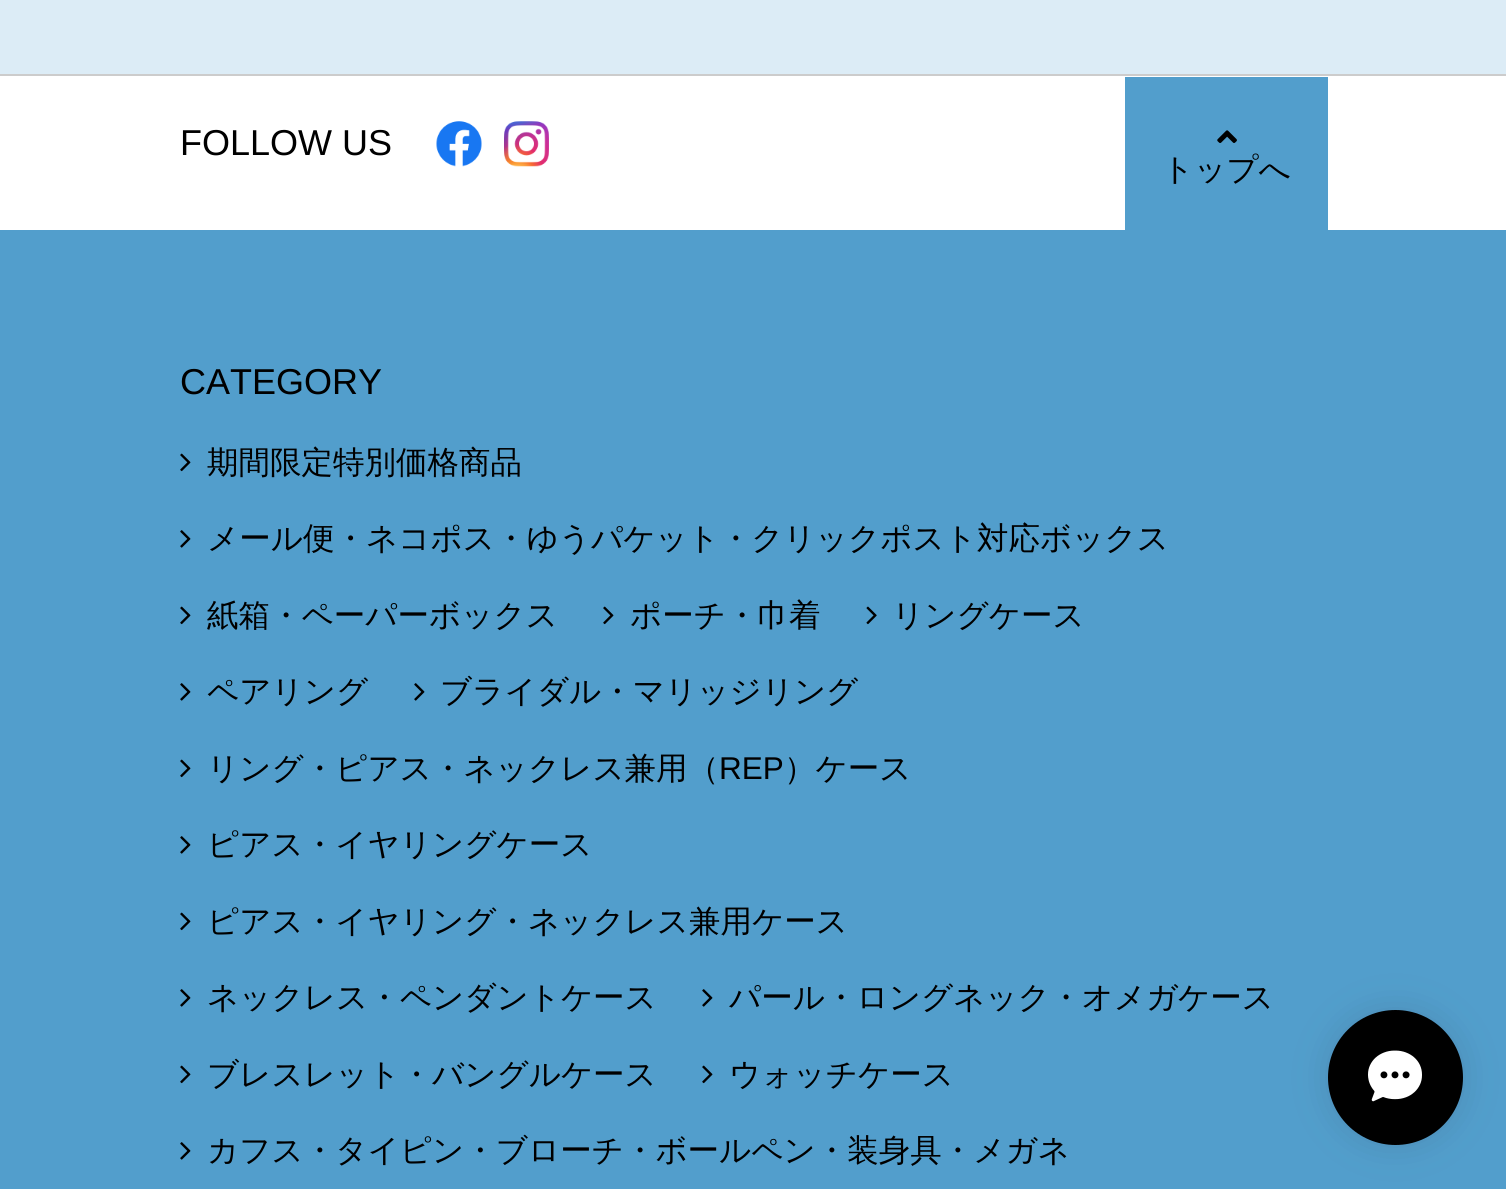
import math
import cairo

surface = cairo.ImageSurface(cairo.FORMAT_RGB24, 1506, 1189)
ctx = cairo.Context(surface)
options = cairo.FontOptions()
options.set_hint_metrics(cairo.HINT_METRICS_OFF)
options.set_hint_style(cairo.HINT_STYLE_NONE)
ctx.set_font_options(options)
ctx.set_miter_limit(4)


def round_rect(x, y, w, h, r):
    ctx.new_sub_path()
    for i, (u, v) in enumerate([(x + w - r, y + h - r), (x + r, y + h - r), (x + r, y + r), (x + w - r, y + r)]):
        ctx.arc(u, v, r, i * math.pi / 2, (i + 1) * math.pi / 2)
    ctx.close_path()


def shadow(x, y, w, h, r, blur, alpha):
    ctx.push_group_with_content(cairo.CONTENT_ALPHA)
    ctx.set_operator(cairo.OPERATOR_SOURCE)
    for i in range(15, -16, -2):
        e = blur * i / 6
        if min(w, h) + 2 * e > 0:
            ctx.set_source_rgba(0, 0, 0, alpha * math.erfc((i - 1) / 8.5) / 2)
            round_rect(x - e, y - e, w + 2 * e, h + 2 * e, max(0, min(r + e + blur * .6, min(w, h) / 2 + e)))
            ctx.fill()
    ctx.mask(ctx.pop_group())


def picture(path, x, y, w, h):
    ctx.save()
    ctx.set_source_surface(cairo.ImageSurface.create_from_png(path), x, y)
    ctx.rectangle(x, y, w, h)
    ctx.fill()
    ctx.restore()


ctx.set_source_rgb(0.863, 0.925, 0.961)
ctx.paint()
ctx.set_source_rgb(1, 1, 1)
ctx.rectangle(0, 76, 1506, 154)
ctx.fill()
ctx.set_source_rgb(0.8, 0.8, 0.8)
ctx.rectangle(0, 74, 1506, 2)
ctx.fill()
ctx.select_font_face("Liberation Sans")
ctx.set_font_size(36)
ctx.set_source_rgb(0, 0, 0)
ctx.move_to(180, 155)
ctx.show_text("FOLLOW US")
picture("img1.png", 436, 121, 46, 46)
picture("img2.png", 504, 121, 45, 46)
ctx.set_source_rgb(0.322, 0.62, 0.8)
ctx.rectangle(1125, 77, 203, 153)
ctx.fill()
picture("img3.png", 1217, 130, 20, 13)
ctx.select_font_face("WenQuanYi Zen Hei Medium")
ctx.set_font_size(31.5)
ctx.set_source_rgb(0, 0, 0)
ctx.move_to(1162, 180)
ctx.show_text("トップへ")
ctx.set_source_rgb(0.322, 0.62, 0.8)
ctx.rectangle(0, 230, 1506, 959)
ctx.fill()
ctx.select_font_face("Liberation Sans")
ctx.set_font_size(36)
ctx.set_source_rgb(0, 0, 0)
ctx.move_to(180, 394)
ctx.show_text("CATEGORY")
picture("img4.png", 180, 453, 11, 19)
ctx.select_font_face("WenQuanYi Zen Hei Medium")
ctx.set_font_size(31.5)
ctx.move_to(207, 473)
ctx.show_text("期間限定特別価格商品")
picture("img5.png", 180, 530, 11, 18)
ctx.move_to(207, 549)
ctx.show_text("メール便・ネコポス・ゆうパケット・クリックポスト対応ボックス")
picture("img4.png", 180, 606, 11, 19)
ctx.move_to(207, 626)
ctx.show_text("紙箱・ペーパーボックス")
picture("img4.png", 603, 606, 11, 19)
ctx.move_to(630, 626)
ctx.show_text("ポーチ・巾着")
picture("img6.png", 866, 606, 11, 19)
ctx.move_to(892, 626)
ctx.show_text("リングケース")
picture("img5.png", 180, 683, 11, 18)
ctx.move_to(207, 702)
ctx.show_text("ペアリング")
picture("img5.png", 414, 683, 11, 18)
ctx.move_to(440, 702)
ctx.show_text("ブライダル・マリッジリング")
picture("img4.png", 180, 759, 11, 19)
ctx.move_to(207, 779)
ctx.show_text("リング・ピアス・ネックレス兼用（")
ctx.select_font_face("Liberation Sans")
ctx.move_to(719, 779)
ctx.show_text("REP")
ctx.select_font_face("WenQuanYi Zen Hei Medium")
ctx.move_to(784, 779)
ctx.show_text("）ケース")
picture("img5.png", 180, 836, 11, 18)
ctx.move_to(207, 855)
ctx.show_text("ピアス・イヤリングケース")
picture("img4.png", 180, 912, 11, 19)
ctx.move_to(207, 932)
ctx.show_text("ピアス・イヤリング・ネックレス兼用ケース")
picture("img5.png", 180, 989, 11, 18)
ctx.move_to(207, 1008)
ctx.show_text("ネックレス・ペンダントケース")
picture("img5.png", 702, 989, 11, 18)
ctx.move_to(729, 1008)
ctx.show_text("パール・ロングネック・オメガケース")
picture("img4.png", 180, 1065, 11, 19)
ctx.move_to(207, 1085)
ctx.show_text("ブレスレット・バングルケース")
picture("img4.png", 702, 1065, 11, 19)
ctx.move_to(729, 1085)
ctx.show_text("ウォッチケース")
picture("img5.png", 180, 1142, 11, 18)
ctx.move_to(207, 1161)
ctx.show_text("カフス・タイピン・ブローチ・ボールペン・装身具・メガネ")
ctx.set_source_rgb(0.2, 0.259, 0.345)
shadow(1328, 1010, 135, 135, 67.5, 17, 0.2)
ctx.set_source_rgb(0, 0, 0)
ctx.arc(1395.5, 1077.5, 67.5, 0, 2 * math.pi)
ctx.fill()
picture("img7.png", 1368, 1050, 54, 52)
surface.write_to_png("page.png")
